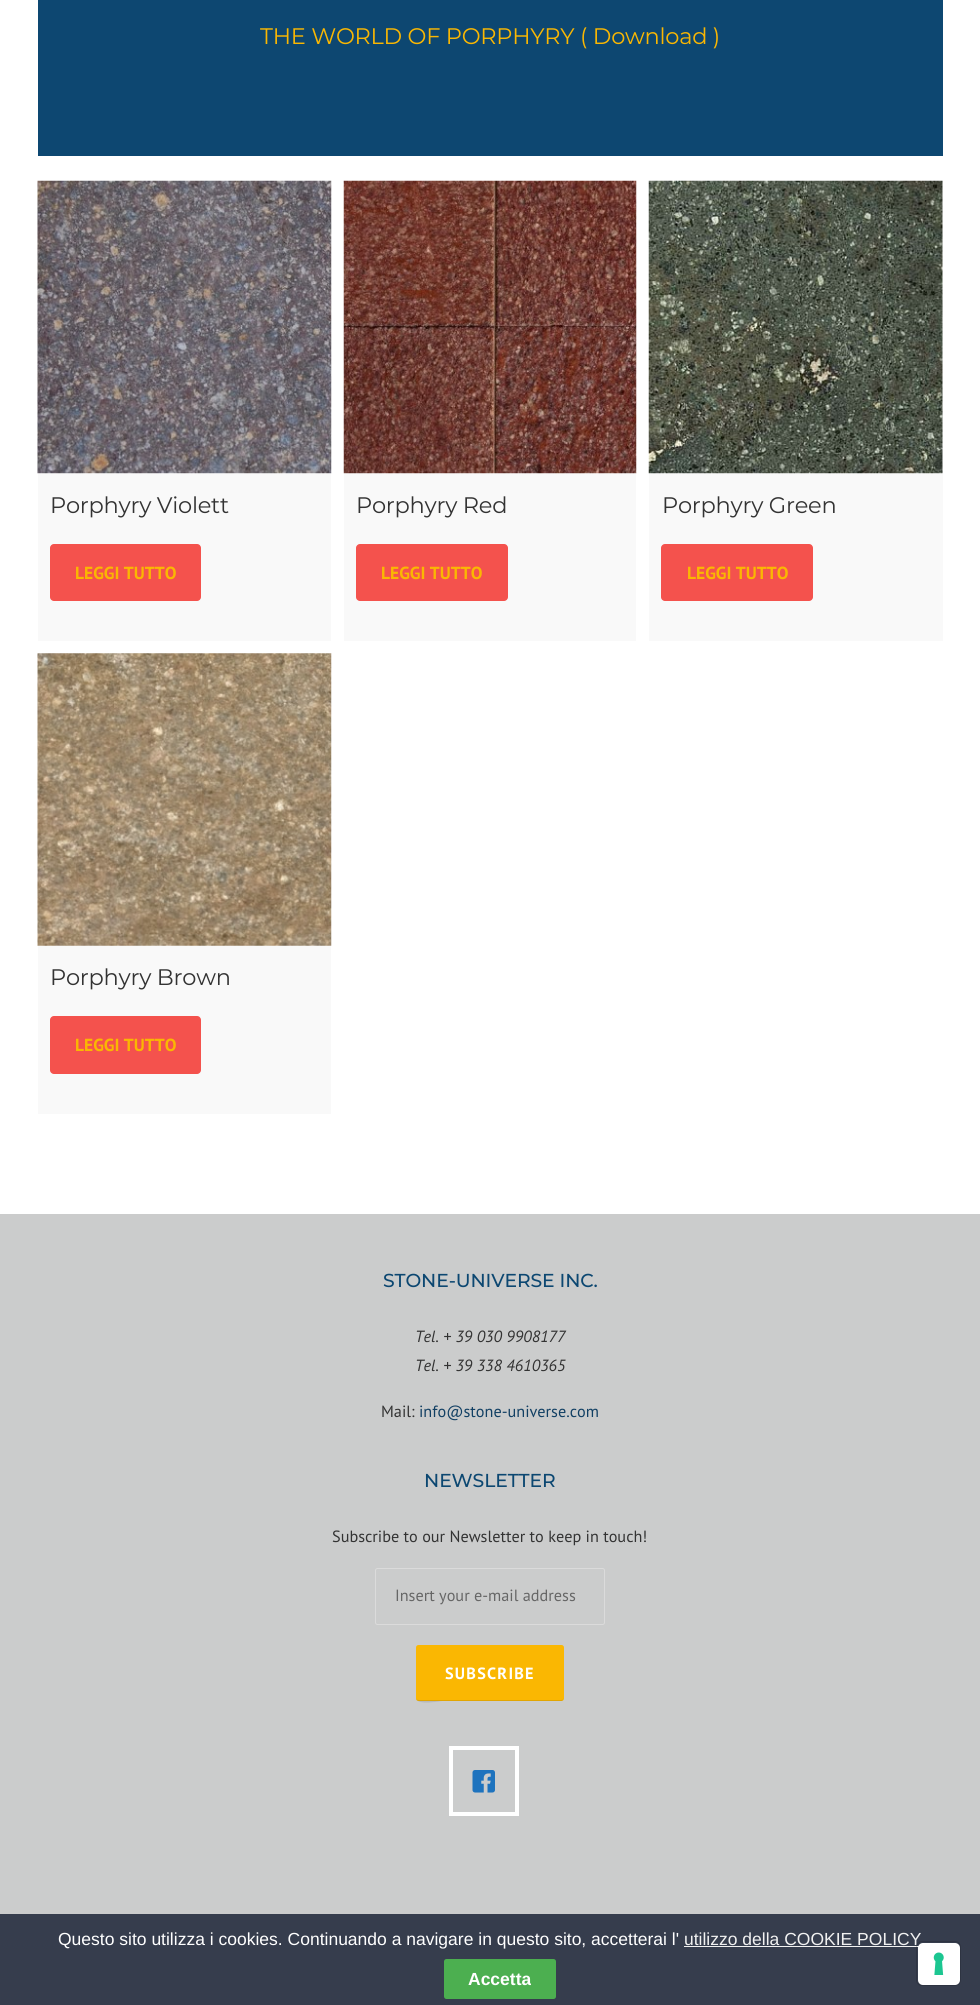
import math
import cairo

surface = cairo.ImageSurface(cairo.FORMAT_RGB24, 980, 2005)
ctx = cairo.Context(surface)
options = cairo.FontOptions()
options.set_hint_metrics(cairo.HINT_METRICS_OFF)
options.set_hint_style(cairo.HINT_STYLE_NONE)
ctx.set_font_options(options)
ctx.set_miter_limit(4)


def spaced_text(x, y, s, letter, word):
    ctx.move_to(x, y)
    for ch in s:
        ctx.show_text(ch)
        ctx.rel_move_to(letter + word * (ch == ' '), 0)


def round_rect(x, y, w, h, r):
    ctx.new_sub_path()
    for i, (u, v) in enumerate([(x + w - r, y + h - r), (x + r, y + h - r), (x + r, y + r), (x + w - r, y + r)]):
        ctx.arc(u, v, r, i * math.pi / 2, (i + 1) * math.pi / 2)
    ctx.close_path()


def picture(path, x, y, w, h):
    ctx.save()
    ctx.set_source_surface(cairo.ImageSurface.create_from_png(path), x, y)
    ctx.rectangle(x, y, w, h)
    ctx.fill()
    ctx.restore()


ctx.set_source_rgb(1, 1, 1)
ctx.paint()
ctx.set_source_rgb(0.051, 0.278, 0.443)
ctx.rectangle(38, 0, 905, 156)
ctx.fill()
ctx.select_font_face("Montserrat")
ctx.set_font_size(22.5)
ctx.set_source_rgb(0.98, 0.718, 0.008)
spaced_text(260, 44, "THE WORLD OF PORPHYRY ( Download )", -0.25, 0)
picture("img1.png", 37, 180, 295, 294)
ctx.set_source_rgb(0.976, 0.976, 0.976)
ctx.rectangle(38, 474, 293, 167)
ctx.fill()
ctx.set_source_rgb(0.2, 0.2, 0.2)
spaced_text(50, 513, "Porphyry Violett", -0.25, 0)
ctx.set_source_rgb(0.957, 0.322, 0.302)
round_rect(50, 544, 151, 57, 4)
ctx.fill()
ctx.select_font_face("PT Sans", cairo.FONT_SLANT_NORMAL, cairo.FONT_WEIGHT_BOLD)
ctx.set_font_size(17.5)
ctx.set_source_rgb(0.98, 0.718, 0.008)
ctx.move_to(75, 579)
ctx.show_text("LEGGI TUTTO")
picture("img2.png", 343, 180, 294, 294)
ctx.set_source_rgb(0.976, 0.976, 0.976)
ctx.rectangle(344, 474, 292, 167)
ctx.fill()
ctx.select_font_face("Montserrat")
ctx.set_font_size(22.5)
ctx.set_source_rgb(0.2, 0.2, 0.2)
spaced_text(356, 513, "Porphyry Red", -0.25, 0)
ctx.set_source_rgb(0.957, 0.322, 0.302)
round_rect(356, 544, 152, 57, 4)
ctx.fill()
ctx.select_font_face("PT Sans", cairo.FONT_SLANT_NORMAL, cairo.FONT_WEIGHT_BOLD)
ctx.set_font_size(17.5)
ctx.set_source_rgb(0.98, 0.718, 0.008)
ctx.move_to(381, 579)
ctx.show_text("LEGGI TUTTO")
picture("img3.png", 648, 180, 295, 294)
ctx.set_source_rgb(0.976, 0.976, 0.976)
ctx.rectangle(649, 474, 294, 167)
ctx.fill()
ctx.select_font_face("Montserrat")
ctx.set_font_size(22.5)
ctx.set_source_rgb(0.2, 0.2, 0.2)
spaced_text(662, 513, "Porphyry Green", -0.25, 0)
ctx.set_source_rgb(0.957, 0.322, 0.302)
round_rect(661, 544, 152, 57, 4)
ctx.fill()
ctx.select_font_face("PT Sans", cairo.FONT_SLANT_NORMAL, cairo.FONT_WEIGHT_BOLD)
ctx.set_font_size(17.5)
ctx.set_source_rgb(0.98, 0.718, 0.008)
ctx.move_to(687, 579)
ctx.show_text("LEGGI TUTTO")
picture("img4.png", 37, 653, 295, 293)
ctx.set_source_rgb(0.976, 0.976, 0.976)
ctx.rectangle(38, 946, 293, 168)
ctx.fill()
ctx.select_font_face("Montserrat")
ctx.set_font_size(22.5)
ctx.set_source_rgb(0.2, 0.2, 0.2)
spaced_text(50, 985, "Porphyry Brown", -0.25, 0)
ctx.set_source_rgb(0.957, 0.322, 0.302)
round_rect(50, 1016, 151, 58, 4)
ctx.fill()
ctx.select_font_face("PT Sans", cairo.FONT_SLANT_NORMAL, cairo.FONT_WEIGHT_BOLD)
ctx.set_font_size(17.5)
ctx.set_source_rgb(0.98, 0.718, 0.008)
ctx.move_to(75, 1051)
ctx.show_text("LEGGI TUTTO")
ctx.set_source_rgb(0.796, 0.8, 0.8)
ctx.rectangle(0, 1214, 980, 700)
ctx.fill()
ctx.select_font_face("Montserrat Medium")
ctx.set_font_size(18.75)
ctx.set_source_rgb(0.047, 0.278, 0.443)
spaced_text(383, 1287, "STONE-UNIVERSE INC.", -0.1, 0)
ctx.select_font_face("PT Sans", cairo.FONT_SLANT_ITALIC)
ctx.set_font_size(16.25)
ctx.set_source_rgb(0.2, 0.2, 0.2)
ctx.move_to(415, 1342)
ctx.show_text("Tel. + 39 030 9908177")
ctx.move_to(415, 1371)
ctx.show_text("Tel. + 39 338 4610365")
ctx.select_font_face("PT Sans")
ctx.move_to(381, 1417)
ctx.show_text("Mail:")
ctx.set_source_rgb(0.067, 0.247, 0.388)
ctx.move_to(419, 1417)
ctx.show_text("info@stone-universe.com")
ctx.select_font_face("Montserrat Medium")
ctx.set_font_size(18.75)
ctx.set_source_rgb(0.047, 0.278, 0.443)
spaced_text(424, 1487, "NEWSLETTER", -0.1, 0)
ctx.select_font_face("PT Sans")
ctx.set_font_size(16.25)
ctx.set_source_rgb(0.2, 0.2, 0.2)
ctx.move_to(332, 1542)
ctx.show_text("Subscribe to our Newsletter to keep in touch!")
round_rect(375.5, 1568.5, 229, 56, 2)
ctx.set_source_rgb(0.859, 0.859, 0.859)
ctx.set_line_width(1)
ctx.stroke()
ctx.set_source_rgb(0.4, 0.4, 0.4)
ctx.move_to(395, 1601)
ctx.show_text("Insert your e-mail address")
ctx.set_source_rgb(0.98, 0.718, 0.008)
round_rect(416, 1645, 148, 56, 2.5)
ctx.fill()
ctx.set_source_rgba(0, 0, 0, 0.1)
ctx.new_path()
ctx.move_to(416, 1698)
ctx.curve_to(416, 1706, 441, 1701, 442, 1701)
ctx.line_to(562, 1701)
ctx.line_to(563, 1700)
ctx.line_to(564, 1698)
ctx.curve_to(564, 1699, 563, 1700, 561, 1700)
ctx.line_to(419, 1700)
ctx.curve_to(417, 1700, 416, 1699, 416, 1698)
ctx.close_path()
ctx.fill()
ctx.select_font_face("PT Sans", cairo.FONT_SLANT_NORMAL, cairo.FONT_WEIGHT_BOLD)
ctx.set_source_rgb(1, 1, 1)
spaced_text(445, 1679, "SUBSCRIBE", 1.25, 0)
picture("img5.png", 472, 1770, 23, 23)
ctx.rectangle(451, 1748, 66, 66)
ctx.set_line_width(4)
ctx.stroke()
ctx.set_source_rgb(0.212, 0.239, 0.302)
ctx.rectangle(0, 1914, 980, 91)
ctx.fill()
ctx.select_font_face("Liberation Sans")
ctx.set_font_size(17.5)
ctx.set_source_rgb(1, 1, 1)
ctx.move_to(58, 1945)
ctx.show_text("Questo sito utilizza i cookies. Continuando a navigare in questo sito, accetterai l'")
ctx.set_source_rgb(0.945, 0.945, 0.945)
ctx.move_to(684, 1945)
ctx.show_text("utilizzo della COOKIE POLICY")
ctx.rectangle(684, 1946, 237, 1)
ctx.fill()
ctx.set_source_rgb(0.298, 0.686, 0.314)
round_rect(444, 1959, 112, 40, 2.5)
ctx.fill()
ctx.select_font_face("Liberation Sans", cairo.FONT_SLANT_NORMAL, cairo.FONT_WEIGHT_BOLD)
ctx.set_source_rgb(1, 1, 1)
ctx.move_to(468, 1985)
ctx.show_text("Accetta")
round_rect(916.5, 1941.5, 44, 44, 5.5)
ctx.set_source_rgba(0, 0, 0, 0.15)
ctx.set_line_width(1)
ctx.stroke()
ctx.set_source_rgb(1, 1, 1)
round_rect(918, 1943, 42, 42, 5)
ctx.fill()
picture("img6.png", 933, 1952, 11, 23)
surface.write_to_png("page.png")
